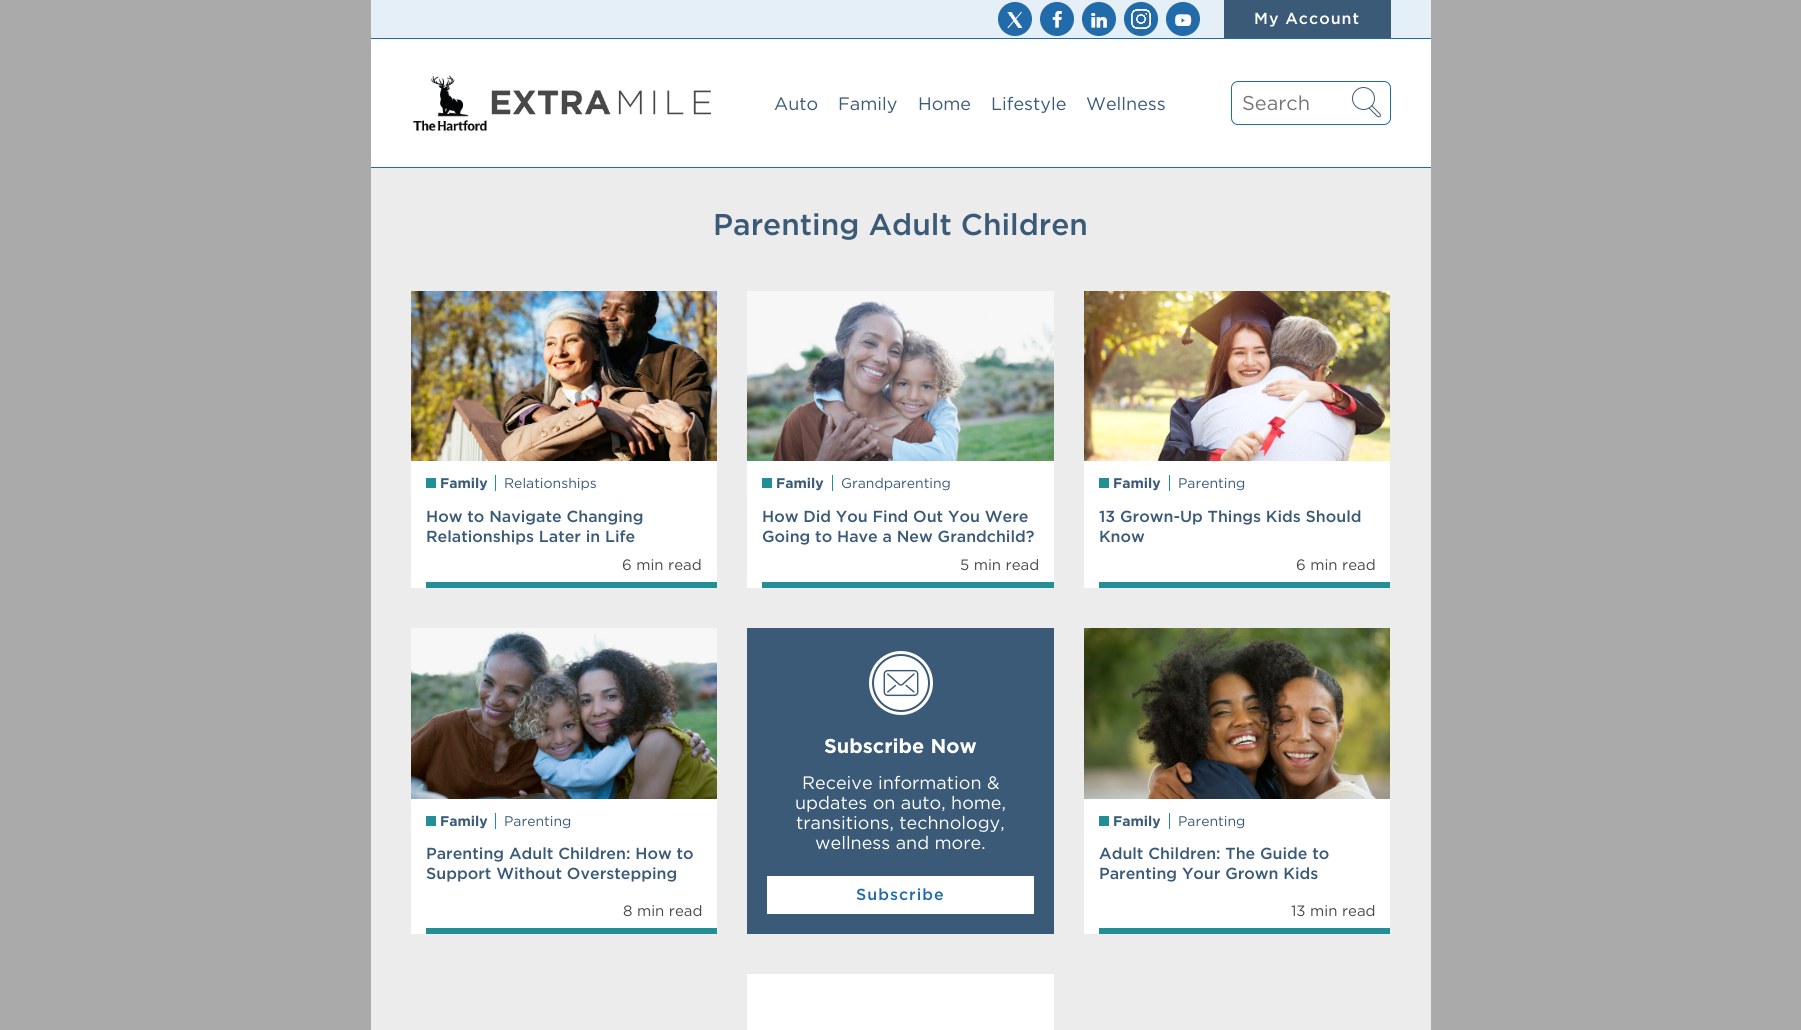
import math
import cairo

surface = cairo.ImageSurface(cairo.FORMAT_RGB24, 1801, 1030)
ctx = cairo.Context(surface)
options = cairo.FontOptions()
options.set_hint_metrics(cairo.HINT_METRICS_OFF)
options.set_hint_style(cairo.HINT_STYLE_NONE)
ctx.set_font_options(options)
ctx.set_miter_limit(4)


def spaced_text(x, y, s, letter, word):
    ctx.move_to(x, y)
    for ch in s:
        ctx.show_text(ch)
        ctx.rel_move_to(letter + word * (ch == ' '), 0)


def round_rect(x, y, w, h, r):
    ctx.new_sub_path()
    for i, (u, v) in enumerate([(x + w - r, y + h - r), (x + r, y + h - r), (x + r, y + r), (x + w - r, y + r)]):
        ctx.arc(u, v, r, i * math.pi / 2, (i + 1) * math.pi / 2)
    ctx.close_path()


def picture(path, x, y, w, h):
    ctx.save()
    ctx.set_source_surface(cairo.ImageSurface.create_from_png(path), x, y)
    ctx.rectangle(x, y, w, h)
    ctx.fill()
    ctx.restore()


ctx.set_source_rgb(0.667, 0.667, 0.667)
ctx.paint()
ctx.set_source_rgb(0.925, 0.925, 0.925)
ctx.rectangle(371, 168, 1060, 862)
ctx.fill()
ctx.set_source_rgb(1, 1, 1)
ctx.rectangle(371, 39, 1060, 128)
ctx.fill()
ctx.set_source_rgb(0.129, 0.42, 0.671)
ctx.rectangle(371, 167, 1060, 1)
ctx.fill()
ctx.set_source_rgb(0.894, 0.937, 0.965)
ctx.rectangle(371, 0, 1060, 38)
ctx.fill()
ctx.set_source_rgb(0.129, 0.42, 0.671)
ctx.rectangle(371, 38, 1060, 1)
ctx.fill()
picture("img1.png", 998, 2, 34, 34)
picture("img2.png", 1040, 2, 34, 34)
picture("img3.png", 1082, 2, 34, 34)
picture("img4.png", 1124, 2, 34, 34)
picture("img5.png", 1166, 2, 34, 34)
ctx.set_source_rgb(0.227, 0.353, 0.471)
ctx.rectangle(1224, 0, 167, 38)
ctx.fill()
ctx.select_font_face("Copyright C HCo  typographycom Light")
ctx.set_font_size(16)
ctx.set_source_rgb(1, 1, 1)
spaced_text(1254, 24, "My Account", 1, 0)
picture("img6.png", 413, 75, 74, 56)
picture("img7.png", 491, 90, 220, 25)
ctx.select_font_face("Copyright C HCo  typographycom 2 Light")
ctx.set_font_size(18)
ctx.set_source_rgb(0.227, 0.353, 0.471)
ctx.move_to(774, 110)
ctx.show_text("Auto")
ctx.move_to(838, 110)
ctx.show_text("Family")
ctx.move_to(918, 110)
ctx.show_text("Home")
ctx.move_to(991, 110)
ctx.show_text("Lifestyle")
ctx.move_to(1086, 110)
ctx.show_text("Wellness")
round_rect(1231.5, 81.5, 159, 43, 6.5)
ctx.set_source_rgb(0.129, 0.42, 0.671)
ctx.set_line_width(1)
ctx.stroke()
ctx.set_font_size(20)
ctx.set_source_rgb(0.459, 0.459, 0.459)
ctx.move_to(1242, 110)
ctx.show_text("Search")
ctx.new_path()
ctx.move_to(1369, 105.5)
ctx.curve_to(1370, 105, 1370.5, 105, 1371.5, 105.5)
ctx.line_to(1380, 114)
ctx.curve_to(1380.5, 115, 1380.5, 115.5, 1380, 116.5)
ctx.curve_to(1379, 117, 1378.5, 117, 1377.5, 116.5)
ctx.line_to(1369, 108)
ctx.curve_to(1368.5, 107, 1368.5, 106.5, 1369, 105.5)
ctx.close_path()
ctx.set_source_rgb(0.227, 0.353, 0.471)
ctx.stroke()
ctx.set_source_rgb(1, 1, 1)
ctx.arc(1363.5, 98.5, 11, 0, 2 * math.pi)
ctx.fill_preserve()
ctx.set_source_rgb(0.227, 0.353, 0.471)
ctx.stroke()
ctx.select_font_face("Copyright C HCo  typographycom Light")
ctx.set_font_size(30)
ctx.move_to(713, 235)
ctx.show_text("Parenting Adult Children")
ctx.set_source_rgb(1, 1, 1)
ctx.rectangle(411, 461, 306, 127)
ctx.fill()
picture("img8.png", 411, 291, 306, 170)
ctx.set_source_rgb(0.133, 0.561, 0.588)
ctx.rectangle(426, 478, 10, 10)
ctx.fill()
ctx.select_font_face("Copyright C HCo  typographycom")
ctx.set_font_size(14)
ctx.set_source_rgb(0.227, 0.353, 0.471)
ctx.move_to(440, 488)
ctx.show_text("Family")
ctx.select_font_face("Copyright C HCo  typographycom 2 Light")
ctx.move_to(504, 488)
ctx.show_text("Relationships")
ctx.set_source_rgb(0.133, 0.561, 0.588)
ctx.rectangle(495, 475, 1, 16)
ctx.fill()
ctx.select_font_face("Copyright C HCo  typographycom Light")
ctx.set_font_size(16)
ctx.set_source_rgb(0.227, 0.353, 0.471)
ctx.move_to(426, 522)
ctx.show_text("How to Navigate Changing")
ctx.move_to(426, 542)
ctx.show_text("Relationships Later in Life")
ctx.select_font_face("Copyright C HCo  typographycom 2 Light")
ctx.set_font_size(15)
ctx.set_source_rgb(0.282, 0.282, 0.282)
ctx.move_to(622, 570)
ctx.show_text("6 min read")
ctx.set_source_rgb(0.133, 0.561, 0.588)
ctx.rectangle(426, 582, 291, 6)
ctx.fill()
ctx.set_source_rgb(1, 1, 1)
ctx.rectangle(747, 461, 307, 127)
ctx.fill()
picture("img9.png", 747, 291, 307, 170)
ctx.set_source_rgb(0.133, 0.561, 0.588)
ctx.rectangle(762, 478, 10, 10)
ctx.fill()
ctx.select_font_face("Copyright C HCo  typographycom")
ctx.set_font_size(14)
ctx.set_source_rgb(0.227, 0.353, 0.471)
ctx.move_to(776, 488)
ctx.show_text("Family")
ctx.select_font_face("Copyright C HCo  typographycom 2 Light")
ctx.move_to(841, 488)
ctx.show_text("Grandparenting")
ctx.set_source_rgb(0.133, 0.561, 0.588)
ctx.rectangle(832, 475, 1, 16)
ctx.fill()
ctx.select_font_face("Copyright C HCo  typographycom Light")
ctx.set_font_size(16)
ctx.set_source_rgb(0.227, 0.353, 0.471)
ctx.move_to(762, 522)
ctx.show_text("How Did You Find Out You Were")
ctx.move_to(762, 542)
ctx.show_text("Going to Have a New Grandchild?")
ctx.select_font_face("Copyright C HCo  typographycom 2 Light")
ctx.set_font_size(15)
ctx.set_source_rgb(0.282, 0.282, 0.282)
ctx.move_to(960, 570)
ctx.show_text("5 min read")
ctx.set_source_rgb(0.133, 0.561, 0.588)
ctx.rectangle(762, 582, 292, 6)
ctx.fill()
ctx.set_source_rgb(1, 1, 1)
ctx.rectangle(1084, 461, 306, 127)
ctx.fill()
picture("img10.png", 1084, 291, 306, 170)
ctx.set_source_rgb(0.133, 0.561, 0.588)
ctx.rectangle(1099, 478, 10, 10)
ctx.fill()
ctx.select_font_face("Copyright C HCo  typographycom")
ctx.set_font_size(14)
ctx.set_source_rgb(0.227, 0.353, 0.471)
ctx.move_to(1113, 488)
ctx.show_text("Family")
ctx.select_font_face("Copyright C HCo  typographycom 2 Light")
ctx.move_to(1178, 488)
ctx.show_text("Parenting")
ctx.set_source_rgb(0.133, 0.561, 0.588)
ctx.rectangle(1169, 475, 1, 16)
ctx.fill()
ctx.select_font_face("Copyright C HCo  typographycom Light")
ctx.set_font_size(16)
ctx.set_source_rgb(0.227, 0.353, 0.471)
ctx.move_to(1099, 522)
ctx.show_text("13 Grown-Up Things Kids Should")
ctx.move_to(1099, 542)
ctx.show_text("Know")
ctx.select_font_face("Copyright C HCo  typographycom 2 Light")
ctx.set_font_size(15)
ctx.set_source_rgb(0.282, 0.282, 0.282)
ctx.move_to(1296, 570)
ctx.show_text("6 min read")
ctx.set_source_rgb(0.133, 0.561, 0.588)
ctx.rectangle(1099, 582, 291, 6)
ctx.fill()
ctx.set_source_rgb(1, 1, 1)
ctx.rectangle(411, 799, 306, 135)
ctx.fill()
picture("img11.png", 411, 628, 306, 171)
ctx.set_source_rgb(0.133, 0.561, 0.588)
ctx.rectangle(426, 816, 10, 10)
ctx.fill()
ctx.select_font_face("Copyright C HCo  typographycom")
ctx.set_font_size(14)
ctx.set_source_rgb(0.227, 0.353, 0.471)
ctx.move_to(440, 826)
ctx.show_text("Family")
ctx.select_font_face("Copyright C HCo  typographycom 2 Light")
ctx.move_to(504, 826)
ctx.show_text("Parenting")
ctx.set_source_rgb(0.133, 0.561, 0.588)
ctx.rectangle(495, 813, 1, 16)
ctx.fill()
ctx.select_font_face("Copyright C HCo  typographycom Light")
ctx.set_font_size(16)
ctx.set_source_rgb(0.227, 0.353, 0.471)
ctx.move_to(426, 859)
ctx.show_text("Parenting Adult Children: How to")
ctx.move_to(426, 879)
ctx.show_text("Support Without Overstepping")
ctx.select_font_face("Copyright C HCo  typographycom 2 Light")
ctx.set_font_size(15)
ctx.set_source_rgb(0.282, 0.282, 0.282)
ctx.move_to(623, 916)
ctx.show_text("8 min read")
ctx.set_source_rgb(0.133, 0.561, 0.588)
ctx.rectangle(426, 928, 291, 6)
ctx.fill()
ctx.set_source_rgb(0.227, 0.353, 0.471)
ctx.rectangle(747, 628, 307, 306)
ctx.fill()
picture("img12.png", 869, 651, 64, 64)
ctx.select_font_face("Copyright C HCo  typographycom")
ctx.set_font_size(20)
ctx.set_source_rgb(1, 1, 1)
ctx.move_to(824, 753)
ctx.show_text("Subscribe Now")
ctx.select_font_face("Copyright C HCo  typographycom 2 Light")
ctx.set_font_size(18)
ctx.move_to(802, 789)
ctx.show_text("Receive information &")
ctx.move_to(795, 809)
ctx.show_text("updates on auto, home,")
ctx.move_to(796, 829)
ctx.show_text("transitions, technology,")
ctx.move_to(815, 849)
ctx.show_text("wellness and more.")
ctx.rectangle(767, 876, 267, 38)
ctx.fill()
ctx.select_font_face("Copyright C HCo  typographycom Light")
ctx.set_font_size(16)
ctx.set_source_rgb(0.129, 0.42, 0.671)
spaced_text(856, 900, "Subscribe", 1, 0)
ctx.set_source_rgb(1, 1, 1)
ctx.rectangle(1084, 799, 306, 135)
ctx.fill()
picture("img13.png", 1084, 628, 306, 171)
ctx.set_source_rgb(0.133, 0.561, 0.588)
ctx.rectangle(1099, 816, 10, 10)
ctx.fill()
ctx.select_font_face("Copyright C HCo  typographycom")
ctx.set_font_size(14)
ctx.set_source_rgb(0.227, 0.353, 0.471)
ctx.move_to(1113, 826)
ctx.show_text("Family")
ctx.select_font_face("Copyright C HCo  typographycom 2 Light")
ctx.move_to(1178, 826)
ctx.show_text("Parenting")
ctx.set_source_rgb(0.133, 0.561, 0.588)
ctx.rectangle(1169, 813, 1, 16)
ctx.fill()
ctx.select_font_face("Copyright C HCo  typographycom Light")
ctx.set_font_size(16)
ctx.set_source_rgb(0.227, 0.353, 0.471)
ctx.move_to(1099, 859)
ctx.show_text("Adult Children: The Guide to")
ctx.move_to(1099, 879)
ctx.show_text("Parenting Your Grown Kids")
ctx.select_font_face("Copyright C HCo  typographycom 2 Light")
ctx.set_font_size(15)
ctx.set_source_rgb(0.282, 0.282, 0.282)
ctx.move_to(1291, 916)
ctx.show_text("13 min read")
ctx.set_source_rgb(0.133, 0.561, 0.588)
ctx.rectangle(1099, 928, 291, 6)
ctx.fill()
ctx.set_source_rgb(1, 1, 1)
ctx.rectangle(747, 974, 307, 56)
ctx.fill()
surface.write_to_png("page.png")
